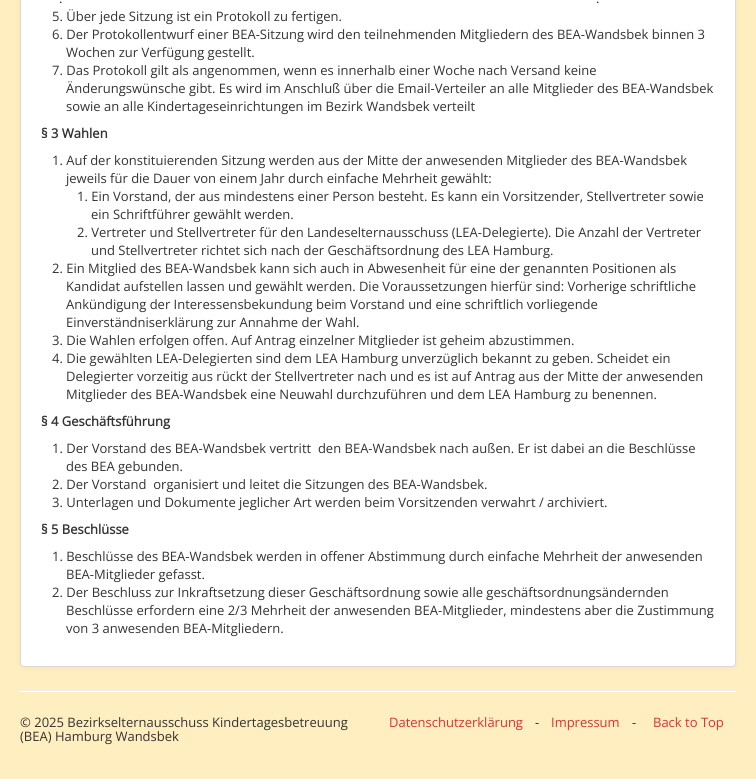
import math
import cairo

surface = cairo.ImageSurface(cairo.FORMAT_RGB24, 756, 779)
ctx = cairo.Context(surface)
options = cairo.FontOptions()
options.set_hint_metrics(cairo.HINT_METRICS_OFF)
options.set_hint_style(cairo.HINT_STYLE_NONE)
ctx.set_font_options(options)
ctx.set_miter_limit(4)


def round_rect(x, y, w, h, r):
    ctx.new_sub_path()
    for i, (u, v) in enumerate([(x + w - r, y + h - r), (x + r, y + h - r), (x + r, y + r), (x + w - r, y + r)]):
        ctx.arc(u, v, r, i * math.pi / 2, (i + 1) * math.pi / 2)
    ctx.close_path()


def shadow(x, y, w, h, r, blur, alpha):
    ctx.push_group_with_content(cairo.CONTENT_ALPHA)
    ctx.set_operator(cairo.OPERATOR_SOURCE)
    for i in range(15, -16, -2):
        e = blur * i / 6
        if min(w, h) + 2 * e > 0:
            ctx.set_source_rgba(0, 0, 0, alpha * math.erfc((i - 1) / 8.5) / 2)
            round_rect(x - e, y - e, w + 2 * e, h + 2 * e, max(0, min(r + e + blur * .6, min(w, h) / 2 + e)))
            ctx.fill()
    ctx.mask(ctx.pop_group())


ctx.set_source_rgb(1, 0.933, 0.749)
ctx.paint()
ctx.set_source_rgb(0, 0, 0)
shadow(20, -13, 716, 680, 4, 3, 0.05)
ctx.set_source_rgb(1, 1, 1)
round_rect(20, -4, 716, 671, 4)
ctx.fill()
round_rect(20.5, -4.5, 715, 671, 3.5)
ctx.set_source_rgba(0, 0, 0, 0.15)
ctx.set_line_width(1)
ctx.stroke()
ctx.select_font_face("Open Sans")
ctx.set_font_size(13)
ctx.set_source_rgb(0.2, 0.2, 0.2)
ctx.move_to(59, 3)
ctx.show_text(".")
ctx.move_to(596, 3)
ctx.show_text(".")
ctx.move_to(52, 21)
ctx.show_text("5. Über jede Sitzung ist ein Protokoll zu fertigen.")
ctx.move_to(52, 39)
ctx.show_text("6. Der Protokollentwurf einer BEA-Sitzung wird den teilnehmenden Mitgliedern des BEA-Wandsbek binnen 3")
ctx.move_to(66, 57)
ctx.show_text("Wochen zur Verfügung gestellt.")
ctx.move_to(52, 75)
ctx.show_text("7. Das Protokoll gilt als angenommen, wenn es innerhalb einer Woche nach Versand keine")
ctx.move_to(66, 93)
ctx.show_text("Änderungswünsche gibt. Es wird im Anschluß über die Email-Verteiler an alle Mitglieder des BEA-Wandsbek")
ctx.move_to(66, 111)
ctx.show_text("sowie an alle Kindertageseinrichtungen im Bezirk Wandsbek verteilt")
ctx.select_font_face("Open Sans", cairo.FONT_SLANT_NORMAL, cairo.FONT_WEIGHT_BOLD)
ctx.move_to(41, 138)
ctx.show_text("§ 3 Wahlen")
ctx.select_font_face("Open Sans")
ctx.move_to(52, 165)
ctx.show_text("1. Auf der konstituierenden Sitzung werden aus der Mitte der anwesenden Mitglieder des BEA-Wandsbek")
ctx.move_to(66, 183)
ctx.show_text("jeweils für die Dauer von einem Jahr durch einfache Mehrheit gewählt:")
ctx.move_to(77, 201)
ctx.show_text("1. Ein Vorstand, der aus mindestens einer Person besteht. Es kann ein Vorsitzender, Stellvertreter sowie")
ctx.move_to(91, 219)
ctx.show_text("ein Schriftführer gewählt werden.")
ctx.move_to(77, 237)
ctx.show_text("2. Vertreter und Stellvertreter für den Landeselternausschuss (LEA-Delegierte). Die Anzahl der Vertreter")
ctx.move_to(91, 255)
ctx.show_text("und Stellvertreter richtet sich nach der Geschäftsordnung des LEA Hamburg.")
ctx.move_to(52, 273)
ctx.show_text("2. Ein Mitglied des BEA-Wandsbek kann sich auch in Abwesenheit für eine der genannten Positionen als")
ctx.move_to(66, 291)
ctx.show_text("Kandidat aufstellen lassen und gewählt werden. Die Voraussetzungen hierfür sind: Vorherige schriftliche")
ctx.move_to(66, 309)
ctx.show_text("Ankündigung der Interessensbekundung beim Vorstand und eine schriftlich vorliegende")
ctx.move_to(66, 327)
ctx.show_text("Einverständniserklärung zur Annahme der Wahl.")
ctx.move_to(52, 345)
ctx.show_text("3. Die Wahlen erfolgen offen. Auf Antrag einzelner Mitglieder ist geheim abzustimmen.")
ctx.move_to(52, 363)
ctx.show_text("4. Die gewählten LEA-Delegierten sind dem LEA Hamburg unverzüglich bekannt zu geben. Scheidet ein")
ctx.move_to(66, 381)
ctx.show_text("Delegierter vorzeitig aus rückt der Stellvertreter nach und es ist auf Antrag aus der Mitte der anwesenden")
ctx.move_to(66, 399)
ctx.show_text("Mitglieder des BEA-Wandsbek eine Neuwahl durchzuführen und dem LEA Hamburg zu benennen.")
ctx.select_font_face("Open Sans", cairo.FONT_SLANT_NORMAL, cairo.FONT_WEIGHT_BOLD)
ctx.move_to(41, 426)
ctx.show_text("§ 4 Geschäftsführung")
ctx.select_font_face("Open Sans")
ctx.move_to(52, 453)
ctx.show_text("1. Der Vorstand des BEA-Wandsbek vertritt  den BEA-Wandsbek nach außen. Er ist dabei an die Beschlüsse")
ctx.move_to(66, 471)
ctx.show_text("des BEA gebunden.")
ctx.move_to(52, 489)
ctx.show_text("2. Der Vorstand  organisiert und leitet die Sitzungen des BEA-Wandsbek.")
ctx.move_to(52, 507)
ctx.show_text("3. Unterlagen und Dokumente jeglicher Art werden beim Vorsitzenden verwahrt / archiviert.")
ctx.select_font_face("Open Sans", cairo.FONT_SLANT_NORMAL, cairo.FONT_WEIGHT_BOLD)
ctx.move_to(41, 534)
ctx.show_text("§ 5 Beschlüsse")
ctx.select_font_face("Open Sans")
ctx.move_to(52, 561)
ctx.show_text("1. Beschlüsse des BEA-Wandsbek werden in offener Abstimmung durch einfache Mehrheit der anwesenden")
ctx.move_to(66, 579)
ctx.show_text("BEA-Mitglieder gefasst.")
ctx.move_to(52, 597)
ctx.show_text("2. Der Beschluss zur Inkraftsetzung dieser Geschäftsordnung sowie alle geschäftsordnungsändernden")
ctx.move_to(66, 615)
ctx.show_text("Beschlüsse erfordern eine 2/3 Mehrheit der anwesenden BEA-Mitglieder, mindestens aber die Zustimmung")
ctx.move_to(66, 633)
ctx.show_text("von 3 anwesenden BEA-Mitgliedern.")
ctx.set_source_rgb(0.933, 0.933, 0.933)
ctx.rectangle(20, 690, 716, 1)
ctx.fill()
ctx.set_source_rgb(1, 1, 1)
ctx.rectangle(20, 691, 716, 1)
ctx.fill()
ctx.set_source_rgb(0.2, 0.2, 0.2)
ctx.move_to(20, 727)
ctx.show_text("© 2025 Bezirkselternausschuss Kindertagesbetreuung")
ctx.move_to(20, 741)
ctx.show_text("(BEA) Hamburg Wandsbek")
ctx.set_source_rgb(0.843, 0.2, 0.2)
ctx.move_to(389, 727)
ctx.show_text("Datenschutzerklärung")
ctx.set_source_rgb(0.2, 0.2, 0.2)
ctx.move_to(535, 727)
ctx.show_text("-")
ctx.set_source_rgb(0.843, 0.2, 0.2)
ctx.move_to(551, 727)
ctx.show_text("Impressum")
ctx.set_source_rgb(0.2, 0.2, 0.2)
ctx.move_to(632, 727)
ctx.show_text("-")
ctx.set_source_rgb(0.843, 0.2, 0.2)
ctx.move_to(653, 727)
ctx.show_text("Back to Top")
surface.write_to_png("page.png")
